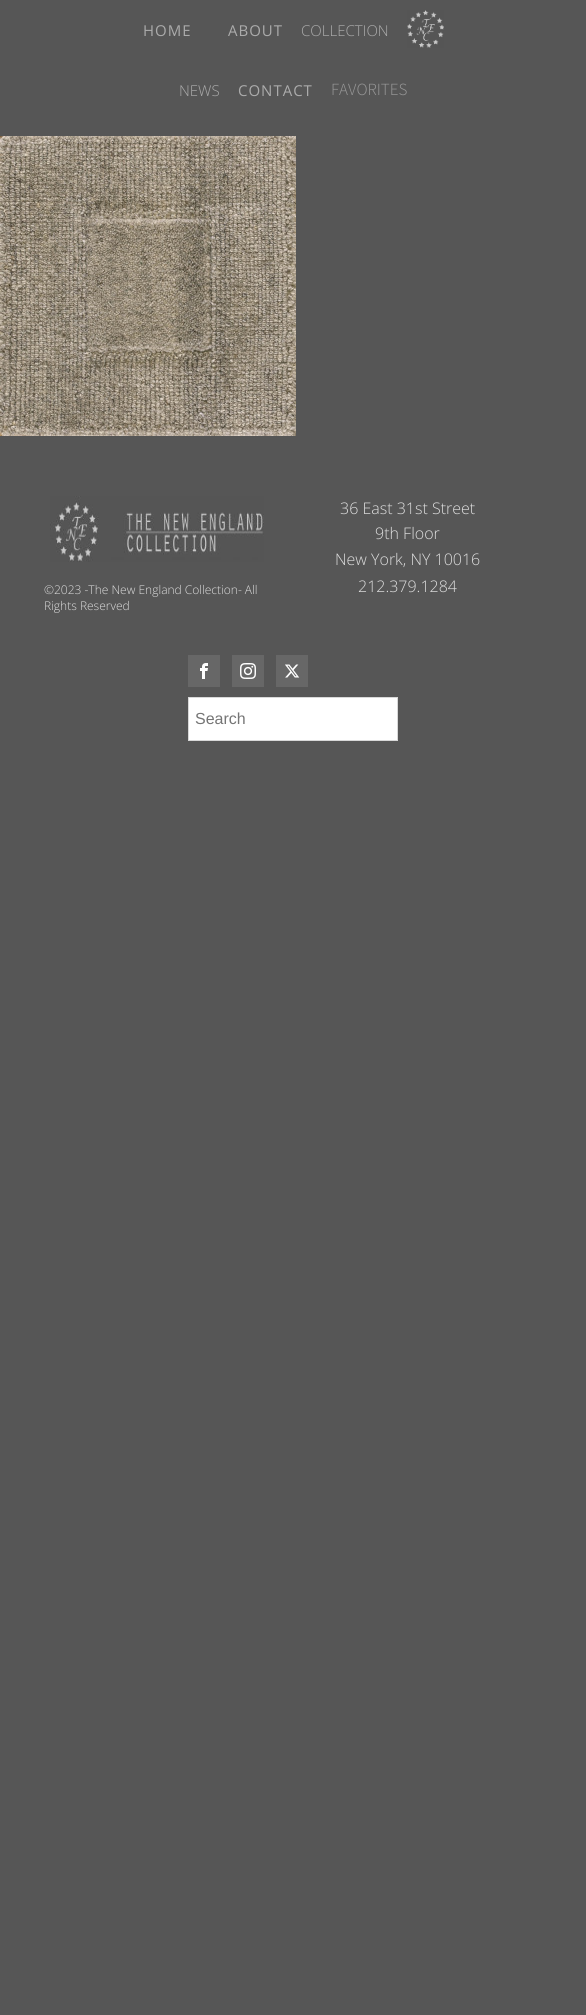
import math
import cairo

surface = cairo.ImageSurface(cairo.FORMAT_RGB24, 586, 2015)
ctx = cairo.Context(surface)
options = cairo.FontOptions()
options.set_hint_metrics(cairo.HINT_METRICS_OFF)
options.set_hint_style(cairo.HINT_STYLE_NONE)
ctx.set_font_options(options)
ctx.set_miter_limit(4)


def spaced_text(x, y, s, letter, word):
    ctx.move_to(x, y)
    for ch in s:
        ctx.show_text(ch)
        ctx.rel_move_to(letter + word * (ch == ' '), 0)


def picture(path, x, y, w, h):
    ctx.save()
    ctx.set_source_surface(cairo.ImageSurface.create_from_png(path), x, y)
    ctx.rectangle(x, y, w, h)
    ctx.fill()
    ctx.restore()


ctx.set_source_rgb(0.337, 0.337, 0.337)
ctx.paint()
ctx.select_font_face("Open Sans")
ctx.set_font_size(15)
ctx.set_source_rgb(0.671, 0.671, 0.671)
spaced_text(143, 36, "HOME", 1, 0)
spaced_text(228, 36, "ABOUT", 1, 0)
ctx.select_font_face("Open Sans Light")
ctx.move_to(301, 36)
ctx.show_text("COLLECTION")
picture("img1.png", 407, 10, 37, 38)
ctx.move_to(179, 96)
ctx.show_text("NEWS")
ctx.select_font_face("Open Sans")
spaced_text(238, 96, "CONTACT", 1, 0)
ctx.select_font_face("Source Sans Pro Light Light")
ctx.set_font_size(17)
ctx.set_source_rgb(0.6, 0.6, 0.6)
ctx.move_to(331, 95)
ctx.show_text("FAVORITES")
picture("img2.png", 0, 136, 296, 300)
ctx.select_font_face("Open Sans Light")
ctx.set_font_size(16)
ctx.set_source_rgb(0.867, 0.867, 0.867)
ctx.move_to(340, 514)
ctx.show_text("36 East 31st Street")
ctx.move_to(375, 539)
ctx.show_text("9th Floor")
ctx.move_to(335, 565)
ctx.show_text("New York, NY 10016")
ctx.move_to(358, 592)
ctx.show_text("212.379.1284")
picture("img3.png", 50, 496, 214, 66)
ctx.set_font_size(12)
ctx.move_to(44, 594)
ctx.show_text("©2023 -The New England Collection- All")
ctx.move_to(44, 610)
ctx.show_text("Rights Reserved")
ctx.set_source_rgb(0.404, 0.404, 0.404)
ctx.rectangle(188, 655, 32, 32)
ctx.fill()
picture("img4.png", 200, 663, 8, 16)
ctx.rectangle(232, 655, 32, 32)
ctx.fill()
picture("img5.png", 240, 663, 16, 16)
ctx.rectangle(276, 655, 32, 32)
ctx.fill()
picture("img6.png", 285, 664, 15, 14)
ctx.set_source_rgb(1, 1, 1)
ctx.rectangle(188.5, 697.5, 209, 43)
ctx.fill_preserve()
ctx.set_source_rgb(0.847, 0.847, 0.847)
ctx.set_line_width(1)
ctx.stroke()
ctx.select_font_face("Liberation Sans")
ctx.set_font_size(16)
ctx.set_source_rgb(0.459, 0.459, 0.459)
ctx.move_to(195, 724)
ctx.show_text("Search")
surface.write_to_png("page.png")
